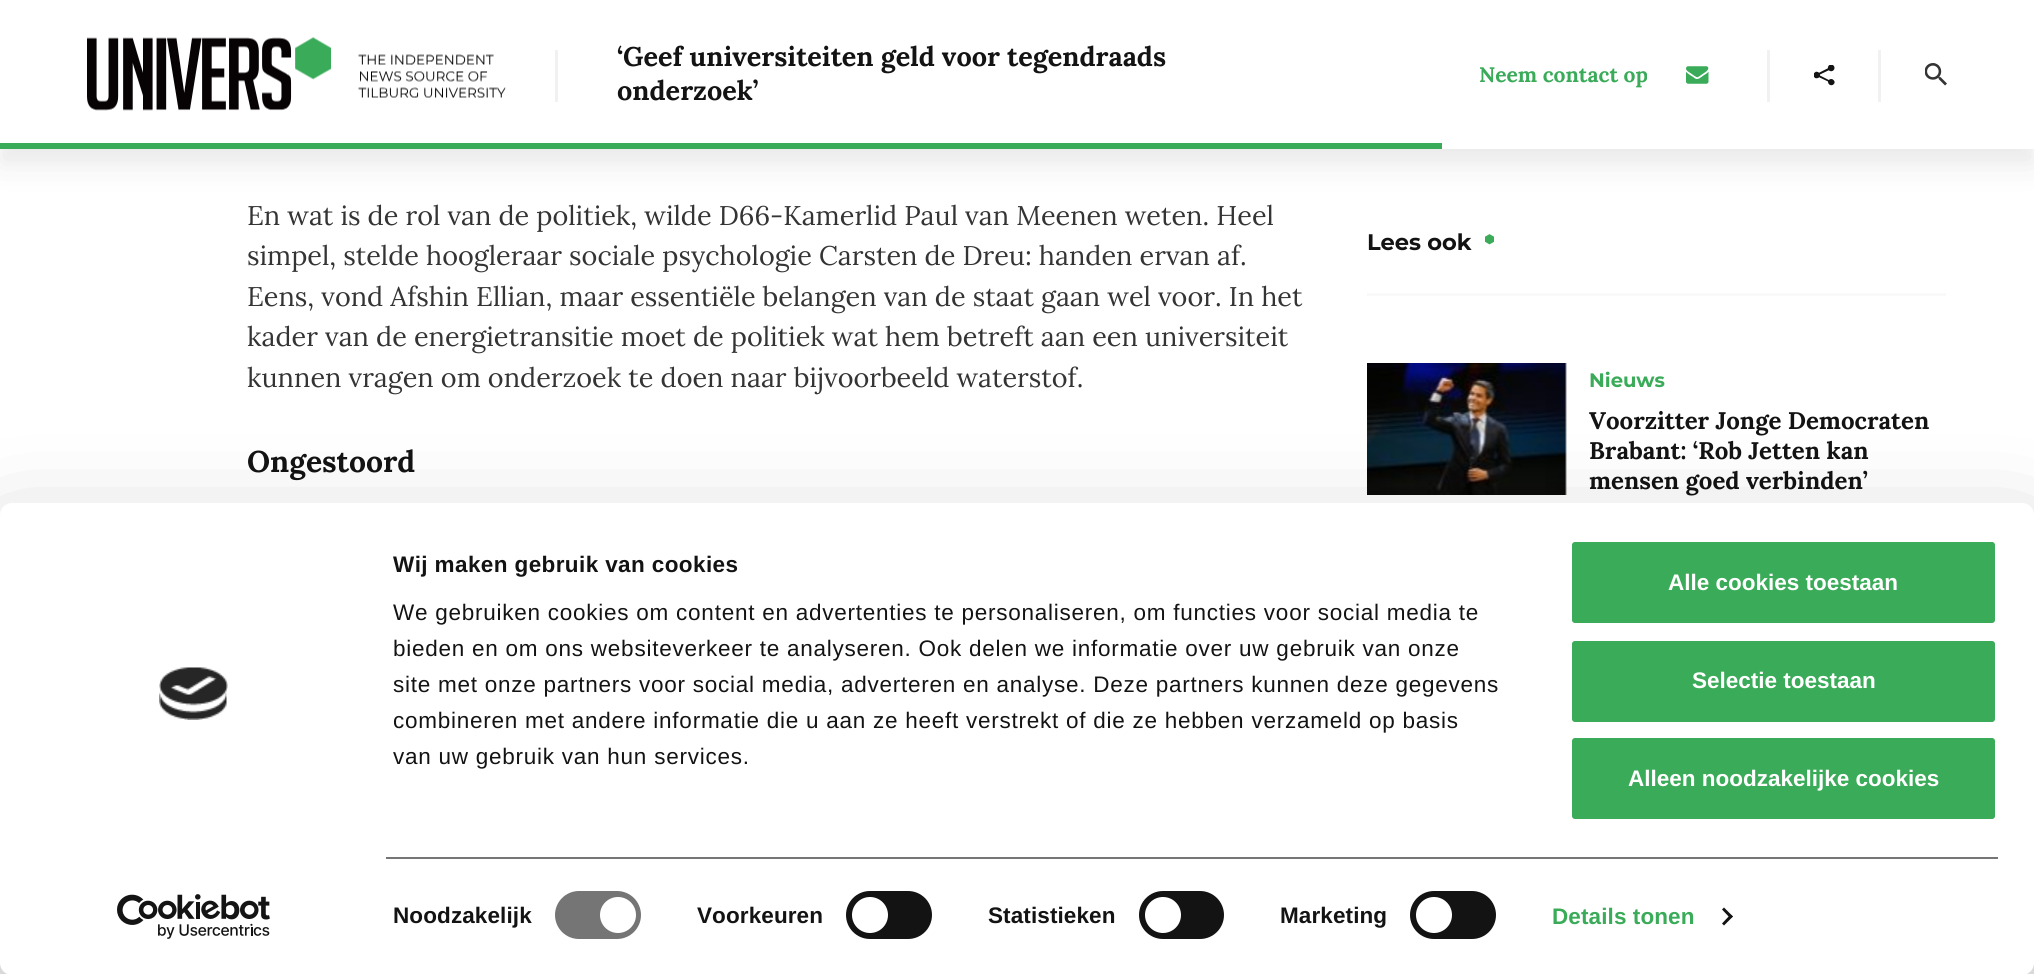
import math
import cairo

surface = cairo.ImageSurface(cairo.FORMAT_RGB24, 2034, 974)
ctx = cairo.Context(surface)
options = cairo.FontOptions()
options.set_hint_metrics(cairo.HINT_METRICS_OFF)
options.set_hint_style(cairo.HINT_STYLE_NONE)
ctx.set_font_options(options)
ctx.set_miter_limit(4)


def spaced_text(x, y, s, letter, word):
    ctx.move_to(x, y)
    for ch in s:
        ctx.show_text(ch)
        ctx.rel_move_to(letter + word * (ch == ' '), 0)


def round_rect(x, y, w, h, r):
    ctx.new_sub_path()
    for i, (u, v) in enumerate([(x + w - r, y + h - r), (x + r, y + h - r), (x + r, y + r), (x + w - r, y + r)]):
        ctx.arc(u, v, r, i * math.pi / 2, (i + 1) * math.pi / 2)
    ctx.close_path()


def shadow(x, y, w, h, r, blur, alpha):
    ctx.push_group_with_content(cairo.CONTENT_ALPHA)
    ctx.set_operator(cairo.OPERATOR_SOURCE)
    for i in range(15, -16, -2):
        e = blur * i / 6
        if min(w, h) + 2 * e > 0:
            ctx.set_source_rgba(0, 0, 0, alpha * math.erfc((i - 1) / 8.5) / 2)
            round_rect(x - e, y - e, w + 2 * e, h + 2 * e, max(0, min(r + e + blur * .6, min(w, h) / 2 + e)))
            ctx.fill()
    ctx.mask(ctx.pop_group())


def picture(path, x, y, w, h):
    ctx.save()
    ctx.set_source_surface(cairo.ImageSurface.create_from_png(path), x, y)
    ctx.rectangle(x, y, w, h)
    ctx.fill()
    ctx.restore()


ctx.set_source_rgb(1, 1, 1)
ctx.paint()
ctx.set_source_rgb(0.102, 0.09, 0.106)
shadow(0, 15, 2034, 149, 0, 15, 0.1)
ctx.set_source_rgb(1, 1, 1)
ctx.rectangle(0, 0, 2034, 149)
ctx.fill()
picture("img1.png", 87, 37, 419, 74)
ctx.set_source_rgb(0.945, 0.945, 0.945)
ctx.rectangle(555, 50, 3, 52)
ctx.fill()
ctx.select_font_face("Lora", cairo.FONT_SLANT_NORMAL, cairo.FONT_WEIGHT_BOLD)
ctx.set_font_size(27)
ctx.set_source_rgb(0.078, 0.078, 0.078)
ctx.move_to(617, 66)
ctx.show_text("‘Geef universiteiten geld voor tegendraads")
ctx.move_to(617, 100)
ctx.show_text("onderzoek’")
ctx.set_font_size(21)
ctx.set_source_rgb(0.227, 0.671, 0.345)
ctx.move_to(1479, 82)
ctx.show_text("Neem contact op")
picture("img2.png", 1686, 66, 23, 18)
ctx.set_source_rgb(0.945, 0.945, 0.945)
ctx.rectangle(1767, 50, 3, 52)
ctx.fill()
picture("img3.png", 1814, 65, 21, 21)
ctx.rectangle(1878, 50, 3, 52)
ctx.fill()
picture("img4.png", 1925, 63, 22, 23)
ctx.set_source_rgb(0.227, 0.671, 0.345)
ctx.rectangle(0, 143, 1442, 6)
ctx.fill()
ctx.select_font_face("Lora")
ctx.set_font_size(27)
ctx.set_source_rgb(0.204, 0.204, 0.204)
ctx.move_to(247, 225)
ctx.show_text("En wat is de rol van de politiek, wilde D66-Kamerlid Paul van Meenen weten. Heel")
ctx.move_to(247, 265)
ctx.show_text("simpel, stelde hoogleraar sociale psychologie Carsten de Dreu: handen ervan af.")
ctx.move_to(247, 306)
ctx.show_text("Eens, vond Afshin Ellian, maar essentiële belangen van de staat gaan wel voor. In het")
ctx.move_to(247, 346)
ctx.show_text("kader van de energietransitie moet de politiek wat hem betreft aan een universiteit")
ctx.move_to(247, 387)
ctx.show_text("kunnen vragen om onderzoek te doen naar bijvoorbeeld waterstof.")
ctx.select_font_face("Lora", cairo.FONT_SLANT_NORMAL, cairo.FONT_WEIGHT_BOLD)
ctx.set_font_size(30)
ctx.set_source_rgb(0.078, 0.078, 0.078)
ctx.move_to(247, 472)
ctx.show_text("Ongestoord")
ctx.select_font_face("Montserrat", cairo.FONT_SLANT_NORMAL, cairo.FONT_WEIGHT_BOLD)
ctx.set_font_size(22.5)
ctx.move_to(1367, 250)
ctx.show_text("Lees ook")
picture("img5.png", 1485, 234, 9, 11)
ctx.set_source_rgb(0.976, 0.976, 0.976)
ctx.rectangle(1367, 293, 579, 3)
ctx.fill()
picture("img6.png", 1367, 363, 200, 132)
ctx.set_font_size(19.5)
ctx.set_source_rgb(0.227, 0.671, 0.345)
ctx.move_to(1589, 387)
ctx.show_text("Nieuws")
ctx.select_font_face("Lora", cairo.FONT_SLANT_NORMAL, cairo.FONT_WEIGHT_BOLD)
ctx.set_font_size(24)
ctx.set_source_rgb(0.078, 0.078, 0.078)
ctx.move_to(1589, 429)
ctx.show_text("Voorzitter Jonge Democraten")
ctx.move_to(1589, 459)
ctx.show_text("Brabant: ‘Rob Jetten kan")
ctx.move_to(1589, 489)
ctx.show_text("mensen goed verbinden’")
ctx.set_source_rgb(0, 0, 0)
shadow(0, 548, 2034, 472, 12, 52.5, 0.3)
ctx.set_source_rgb(1, 1, 1)
round_rect(0, 503, 2034, 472, 12)
ctx.fill()
picture("img7.png", 159, 667, 69, 53)
picture("img8.png", 117, 894, 153, 45)
ctx.select_font_face("Liberation Sans", cairo.FONT_SLANT_NORMAL, cairo.FONT_WEIGHT_BOLD)
ctx.set_font_size(22.5)
ctx.set_source_rgb(0.078, 0.078, 0.078)
spaced_text(393, 572, "Wij maken gebruik van cookies", 0.4, 0)
ctx.select_font_face("Liberation Sans")
spaced_text(393, 620, "We gebruiken cookies om content en advertenties te personaliseren, om functies voor social media te", 0.75, 0)
spaced_text(393, 656, "bieden en om ons websiteverkeer te analyseren. Ook delen we informatie over uw gebruik van onze", 0.75, 0)
spaced_text(393, 692, "site met onze partners voor social media, adverteren en analyse. Deze partners kunnen deze gegevens", 0.75, 0)
spaced_text(393, 728, "combineren met andere informatie die u aan ze heeft verstrekt of die ze hebben verzameld op basis", 0.75, 0)
spaced_text(393, 764, "van uw gebruik van hun services.", 0.75, 0)
ctx.set_source_rgb(0.459, 0.459, 0.459)
ctx.rectangle(386, 857, 1612, 2)
ctx.fill()
ctx.select_font_face("Liberation Sans", cairo.FONT_SLANT_NORMAL, cairo.FONT_WEIGHT_BOLD)
ctx.set_source_rgb(0.078, 0.078, 0.078)
spaced_text(393, 923, "Noodzakelijk", 0.1, 0)
ctx.set_source_rgb(0.459, 0.459, 0.459)
round_rect(555, 891, 86, 48, 24)
ctx.fill()
ctx.set_source_rgb(1, 1, 1)
ctx.arc(618, 915, 18, 0, 2 * math.pi)
ctx.fill()
ctx.set_source_rgb(0.078, 0.078, 0.078)
spaced_text(697, 923, "Voorkeuren", 0.1, 0)
round_rect(846, 891, 86, 48, 24)
ctx.fill()
ctx.set_source_rgb(1, 1, 1)
ctx.arc(870, 915, 18, 0, 2 * math.pi)
ctx.fill()
ctx.set_source_rgb(0.078, 0.078, 0.078)
spaced_text(988, 923, "Statistieken", 0.1, 0)
round_rect(1139, 891, 85, 48, 24)
ctx.fill()
ctx.set_source_rgb(1, 1, 1)
ctx.arc(1163, 915, 18, 0, 2 * math.pi)
ctx.fill()
ctx.set_source_rgb(0.078, 0.078, 0.078)
spaced_text(1280, 923, "Marketing", 0.1, 0)
round_rect(1410, 891, 86, 48, 24)
ctx.fill()
ctx.set_source_rgb(1, 1, 1)
ctx.arc(1434, 915, 18, 0, 2 * math.pi)
ctx.fill()
ctx.set_source_rgb(0.227, 0.671, 0.345)
spaced_text(1552, 924, "Details tonen", 0.1, 0)
ctx.set_source_rgb(0.078, 0.078, 0.078)
ctx.new_path()
ctx.move_to(1724, 907.5)
ctx.line_to(1733, 916.5)
ctx.line_to(1730.5, 918.5)
ctx.line_to(1722, 909.5)
ctx.close_path()
ctx.fill()
ctx.new_path()
ctx.move_to(1730.5, 914.5)
ctx.line_to(1733, 916.5)
ctx.line_to(1724, 925.5)
ctx.line_to(1722, 923.5)
ctx.close_path()
ctx.fill()
ctx.set_source_rgb(0.227, 0.671, 0.345)
round_rect(1570.5, 540.5, 426, 84, 4.5)
ctx.fill_preserve()
ctx.set_source_rgb(1, 1, 1)
ctx.set_line_width(3)
ctx.stroke()
ctx.move_to(1668, 590)
ctx.show_text("Alle cookies toestaan")
ctx.set_source_rgb(0.227, 0.671, 0.345)
round_rect(1570.5, 639.5, 426, 84, 4.5)
ctx.fill_preserve()
ctx.set_source_rgb(1, 1, 1)
ctx.stroke()
ctx.move_to(1692, 688)
ctx.show_text("Selectie toestaan")
ctx.set_source_rgb(0.227, 0.671, 0.345)
round_rect(1570.5, 736.5, 426, 84, 4.5)
ctx.fill_preserve()
ctx.set_source_rgb(1, 1, 1)
ctx.stroke()
ctx.move_to(1628, 786)
ctx.show_text("Alleen noodzakelijke cookies")
surface.write_to_png("page.png")
